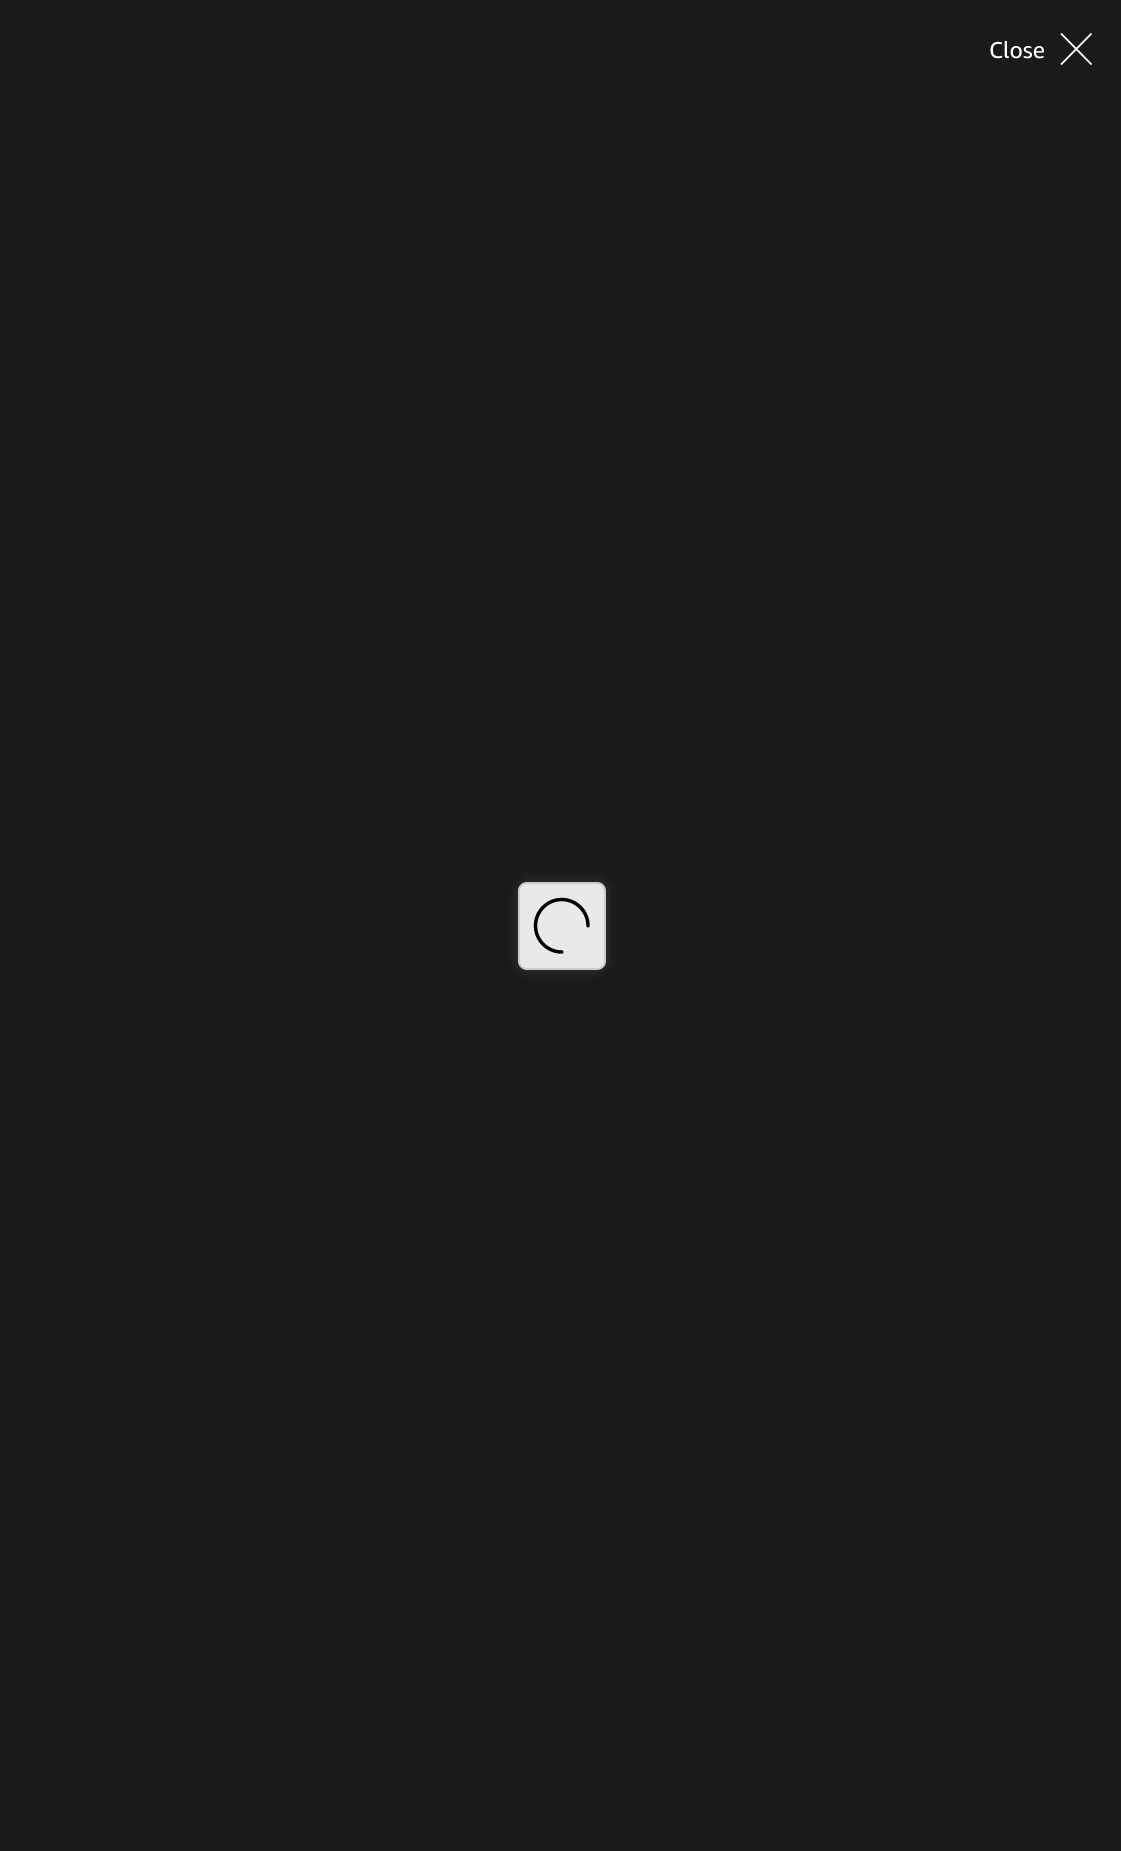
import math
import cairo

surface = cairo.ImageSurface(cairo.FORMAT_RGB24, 1121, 1851)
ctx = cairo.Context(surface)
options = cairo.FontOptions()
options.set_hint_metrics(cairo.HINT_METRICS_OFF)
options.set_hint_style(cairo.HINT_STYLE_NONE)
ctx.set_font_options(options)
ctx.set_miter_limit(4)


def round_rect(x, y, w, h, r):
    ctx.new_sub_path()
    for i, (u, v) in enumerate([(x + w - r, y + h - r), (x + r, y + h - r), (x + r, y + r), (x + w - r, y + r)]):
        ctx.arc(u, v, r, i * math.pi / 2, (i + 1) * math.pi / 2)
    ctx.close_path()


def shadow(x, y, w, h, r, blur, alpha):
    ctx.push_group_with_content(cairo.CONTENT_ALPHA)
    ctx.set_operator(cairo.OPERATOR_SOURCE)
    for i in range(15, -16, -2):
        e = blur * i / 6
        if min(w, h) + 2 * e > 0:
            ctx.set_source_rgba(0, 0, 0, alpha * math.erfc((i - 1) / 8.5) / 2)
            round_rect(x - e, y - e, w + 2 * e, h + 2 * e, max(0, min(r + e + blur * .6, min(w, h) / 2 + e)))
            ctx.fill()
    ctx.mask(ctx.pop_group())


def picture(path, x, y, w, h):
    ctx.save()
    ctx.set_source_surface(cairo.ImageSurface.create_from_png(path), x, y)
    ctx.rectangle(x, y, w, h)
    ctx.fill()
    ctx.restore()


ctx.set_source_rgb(0.102, 0.102, 0.102)
ctx.paint()
ctx.select_font_face("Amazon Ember")
ctx.set_font_size(23)
ctx.set_source_rgb(1, 1, 1)
ctx.move_to(989, 58)
ctx.show_text("Close")
ctx.new_path()
ctx.move_to(1061, 64.5)
ctx.line_to(1091.5, 33.5)
ctx.move_to(1061, 33.5)
ctx.line_to(1091.5, 64.5)
ctx.set_line_width(1.8)
ctx.stroke()
ctx.save()
ctx.set_fill_rule(cairo.FILL_RULE_EVEN_ODD)
ctx.new_path()
ctx.move_to(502, 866)
ctx.line_to(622, 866)
ctx.line_to(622, 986)
ctx.line_to(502, 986)
ctx.close_path()
ctx.move_to(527, 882)
ctx.line_to(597, 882)
ctx.curve_to(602, 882, 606, 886, 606, 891)
ctx.line_to(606, 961)
ctx.curve_to(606, 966, 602, 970, 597, 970)
ctx.line_to(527, 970)
ctx.curve_to(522, 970, 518, 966, 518, 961)
ctx.line_to(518, 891)
ctx.curve_to(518, 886, 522, 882, 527, 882)
ctx.close_path()
ctx.clip()
ctx.set_source_rgb(0.533, 0.533, 0.533)
shadow(518, 882, 88, 88, 9, 5, 0.3)
ctx.restore()
ctx.set_source_rgba(1, 1, 1, 0.9)
round_rect(518, 882, 88, 88, 9)
ctx.fill()
round_rect(519, 883, 86, 86, 8)
ctx.set_source_rgba(0.533, 0.533, 0.533, 0.3)
ctx.set_line_width(2)
ctx.stroke()
picture("img1.png", 533, 897, 57, 57)
surface.write_to_png("page.png")
